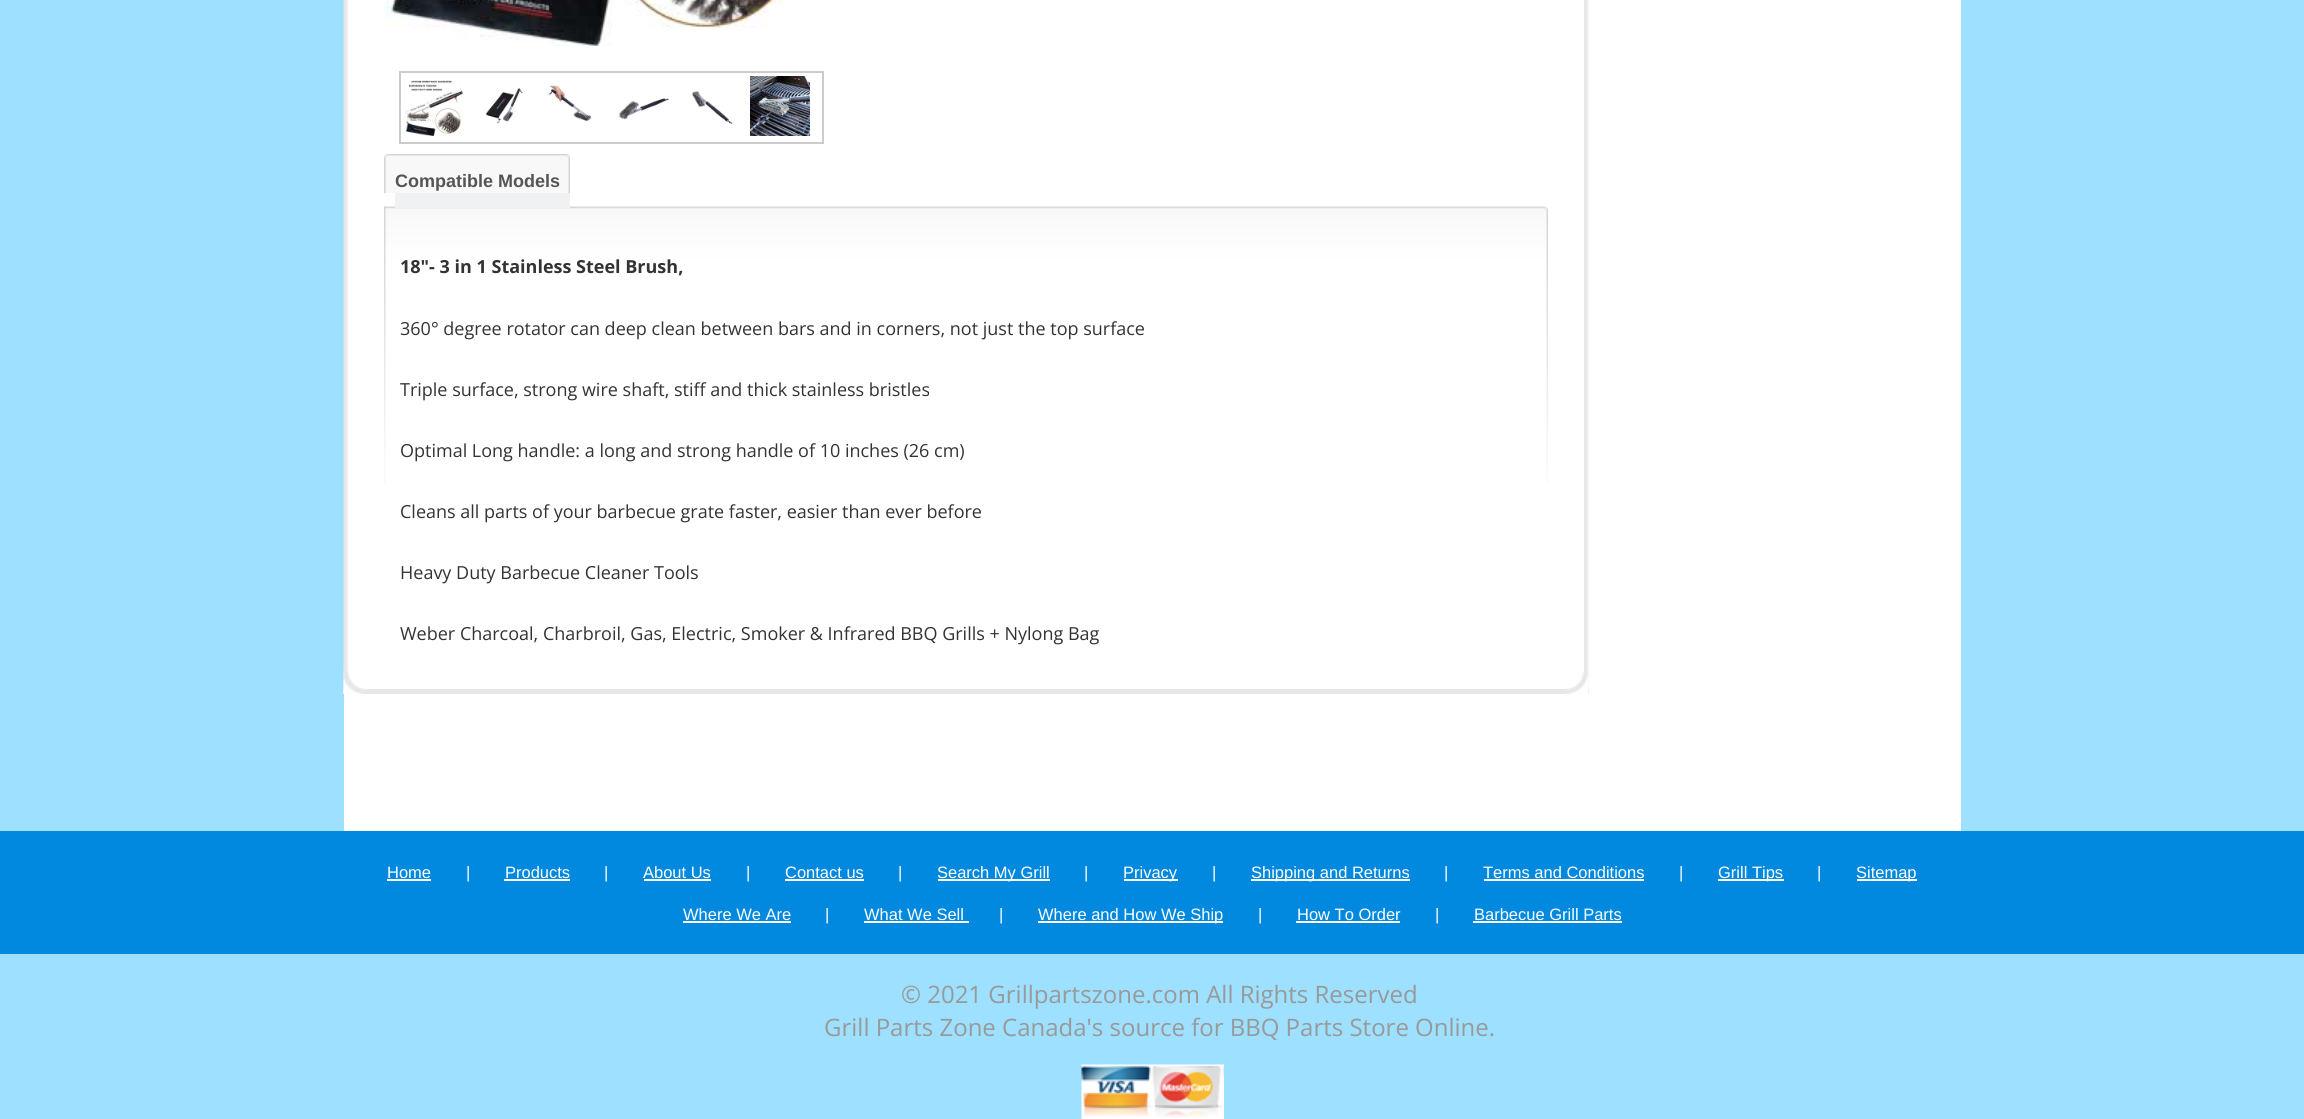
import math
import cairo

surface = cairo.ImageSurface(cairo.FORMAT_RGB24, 2304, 1119)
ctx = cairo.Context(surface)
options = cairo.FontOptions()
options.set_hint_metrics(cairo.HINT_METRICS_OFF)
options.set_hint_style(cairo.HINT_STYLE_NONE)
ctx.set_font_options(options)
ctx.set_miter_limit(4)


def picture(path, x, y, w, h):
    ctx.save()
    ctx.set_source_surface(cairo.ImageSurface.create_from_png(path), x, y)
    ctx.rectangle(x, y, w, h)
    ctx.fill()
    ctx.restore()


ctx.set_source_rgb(0.616, 0.878, 1)
ctx.paint()
ctx.set_source_rgb(1, 1, 1)
ctx.rectangle(344, 0, 1617, 831)
ctx.fill()
picture("img1.png", 1584, 0, 5, 689)
ctx.set_source_rgb(0.902, 0.906, 0.906)
ctx.rectangle(343, 689, 1246, 5)
ctx.fill()
picture("img2.png", 343, 0, 5, 694)
picture("img3.png", 343, 671, 23, 23)
picture("img4.png", 1566, 671, 23, 23)
picture("img5.png", 384, 0, 401, 46)
ctx.rectangle(400, 72, 423, 71)
ctx.set_source_rgb(0.8, 0.8, 0.8)
ctx.stroke()
picture("img6.png", 405, 80, 58, 56)
picture("img7.png", 486, 88, 37, 36)
picture("img8.png", 548, 85, 44, 37)
picture("img9.png", 618, 98, 51, 22)
picture("img10.png", 692, 91, 41, 33)
picture("img11.png", 750, 76, 60, 60)
picture("img12.png", 384, 154, 11, 39)
picture("img14.png", 384, 206, 1164, 277)
ctx.set_source_rgb(0.937, 0.945, 0.953)
ctx.rectangle(395, 193, 175, 15)
ctx.fill()
picture("img13.png", 395, 154, 175, 39)
ctx.select_font_face("Liberation Sans", cairo.FONT_SLANT_NORMAL, cairo.FONT_WEIGHT_BOLD)
ctx.set_font_size(18)
ctx.set_source_rgb(0.333, 0.333, 0.333)
ctx.move_to(395, 187)
ctx.show_text("Compatible Models")
picture("img15.png", 384, 206, 2, 277)
ctx.select_font_face("Open Sans", cairo.FONT_SLANT_NORMAL, cairo.FONT_WEIGHT_BOLD)
ctx.set_source_rgb(0.2, 0.2, 0.2)
ctx.move_to(400, 273)
ctx.show_text("18\"- 3 in 1 Stainless Steel Brush,")
ctx.select_font_face("Open Sans")
ctx.move_to(400, 335)
ctx.show_text("360° degree rotator can deep clean between bars and in corners, not just the top surface")
ctx.move_to(400, 396)
ctx.show_text("Triple surface, strong wire shaft, stiff and thick stainless bristles")
ctx.move_to(400, 457)
ctx.show_text("Optimal Long handle: a long and strong handle of 10 inches (26 cm)")
ctx.move_to(400, 518)
ctx.show_text("Cleans all parts of your barbecue grate faster, easier than ever before")
ctx.move_to(400, 579)
ctx.show_text("Heavy Duty Barbecue Cleaner Tools")
ctx.move_to(400, 640)
ctx.show_text("Weber Charcoal, Charbroil, Gas, Electric, Smoker & Infrared BBQ Grills + Nylong Bag")
ctx.set_source_rgb(0, 0.537, 0.871)
ctx.rectangle(0, 831, 2304, 123)
ctx.fill()
ctx.select_font_face("Liberation Sans")
ctx.set_font_size(16.5)
ctx.set_source_rgb(1, 1, 1)
ctx.move_to(387, 878)
ctx.show_text("Home")
ctx.rectangle(387, 879, 44, 2)
ctx.fill()
ctx.move_to(466, 878)
ctx.show_text("|")
ctx.move_to(505, 878)
ctx.show_text("Products")
ctx.rectangle(504, 879, 66, 2)
ctx.fill()
ctx.move_to(604, 878)
ctx.show_text("|")
ctx.move_to(643, 878)
ctx.show_text("About Us")
ctx.rectangle(644, 879, 67, 2)
ctx.fill()
ctx.move_to(746, 878)
ctx.show_text("|")
ctx.move_to(785, 878)
ctx.show_text("Contact us")
ctx.rectangle(785, 879, 79, 2)
ctx.fill()
ctx.move_to(898, 878)
ctx.show_text("|")
ctx.rectangle(938, 879, 112, 2)
ctx.fill()
ctx.move_to(937, 878)
ctx.show_text("Search My Grill")
ctx.move_to(1084, 878)
ctx.show_text("|")
ctx.rectangle(1124, 879, 54, 2)
ctx.fill()
ctx.move_to(1123, 878)
ctx.show_text("Privacy")
ctx.move_to(1212, 878)
ctx.show_text("|")
ctx.rectangle(1251, 879, 159, 2)
ctx.fill()
ctx.move_to(1251, 878)
ctx.show_text("Shipping and Returns")
ctx.move_to(1444, 878)
ctx.show_text("|")
ctx.move_to(1483, 878)
ctx.show_text("Terms and Conditions")
ctx.rectangle(1484, 879, 160, 2)
ctx.fill()
ctx.move_to(1679, 878)
ctx.show_text("|")
ctx.rectangle(1718, 879, 66, 2)
ctx.fill()
ctx.move_to(1718, 878)
ctx.show_text("Grill Tips")
ctx.move_to(1817, 878)
ctx.show_text("|")
ctx.rectangle(1857, 879, 60, 2)
ctx.fill()
ctx.move_to(1856, 878)
ctx.show_text("Sitemap")
ctx.move_to(683, 920)
ctx.show_text("Where We Are")
ctx.rectangle(683, 921, 108, 2)
ctx.fill()
ctx.move_to(825, 920)
ctx.show_text("|")
ctx.move_to(864, 920)
ctx.show_text("What We Sell")
ctx.rectangle(864, 921, 105, 2)
ctx.fill()
ctx.move_to(999, 920)
ctx.show_text("|")
ctx.rectangle(1038, 921, 185, 2)
ctx.fill()
ctx.move_to(1038, 920)
ctx.show_text("Where and How We Ship")
ctx.move_to(1258, 920)
ctx.show_text("|")
ctx.move_to(1297, 920)
ctx.show_text("How To Order")
ctx.rectangle(1296, 921, 104, 2)
ctx.fill()
ctx.move_to(1435, 920)
ctx.show_text("|")
ctx.move_to(1474, 920)
ctx.show_text("Barbecue Grill Parts")
ctx.rectangle(1473, 921, 149, 2)
ctx.fill()
ctx.select_font_face("Open Sans")
ctx.set_font_size(24)
ctx.set_source_rgb(0.6, 0.6, 0.6)
ctx.move_to(901, 1003)
ctx.show_text("© 2021 Grillpartszone.com All Rights Reserved")
ctx.move_to(824, 1036)
ctx.show_text("Grill Parts Zone Canada's source for BBQ Parts Store Online.")
picture("img16.png", 1081, 1064, 143, 55)
surface.write_to_png("page.png")
